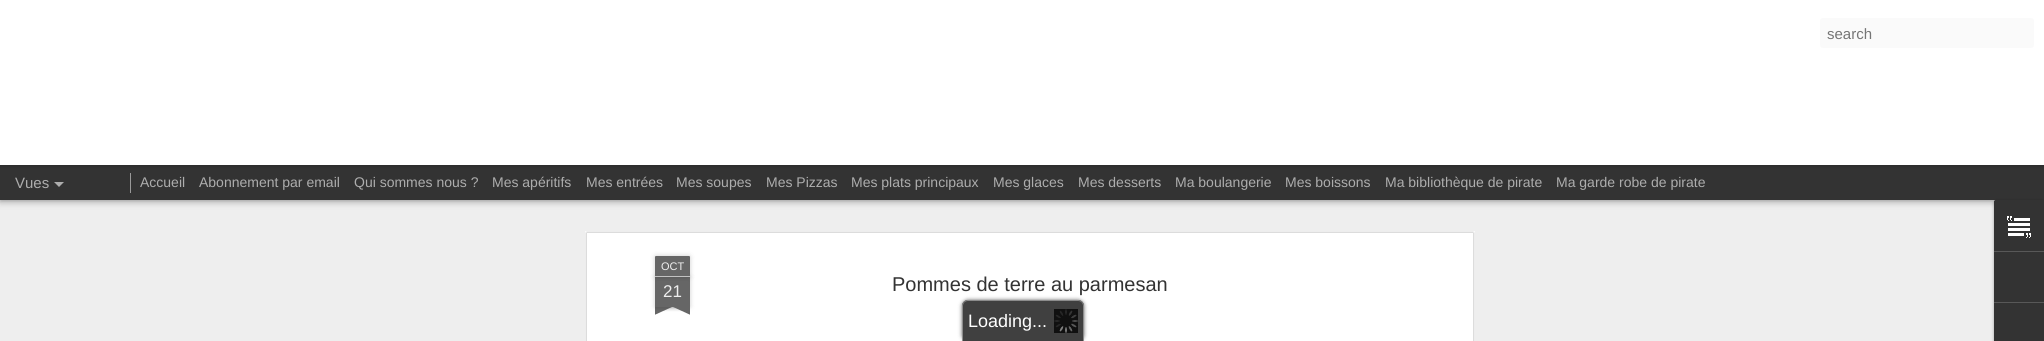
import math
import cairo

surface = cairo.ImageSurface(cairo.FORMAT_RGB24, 2044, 341)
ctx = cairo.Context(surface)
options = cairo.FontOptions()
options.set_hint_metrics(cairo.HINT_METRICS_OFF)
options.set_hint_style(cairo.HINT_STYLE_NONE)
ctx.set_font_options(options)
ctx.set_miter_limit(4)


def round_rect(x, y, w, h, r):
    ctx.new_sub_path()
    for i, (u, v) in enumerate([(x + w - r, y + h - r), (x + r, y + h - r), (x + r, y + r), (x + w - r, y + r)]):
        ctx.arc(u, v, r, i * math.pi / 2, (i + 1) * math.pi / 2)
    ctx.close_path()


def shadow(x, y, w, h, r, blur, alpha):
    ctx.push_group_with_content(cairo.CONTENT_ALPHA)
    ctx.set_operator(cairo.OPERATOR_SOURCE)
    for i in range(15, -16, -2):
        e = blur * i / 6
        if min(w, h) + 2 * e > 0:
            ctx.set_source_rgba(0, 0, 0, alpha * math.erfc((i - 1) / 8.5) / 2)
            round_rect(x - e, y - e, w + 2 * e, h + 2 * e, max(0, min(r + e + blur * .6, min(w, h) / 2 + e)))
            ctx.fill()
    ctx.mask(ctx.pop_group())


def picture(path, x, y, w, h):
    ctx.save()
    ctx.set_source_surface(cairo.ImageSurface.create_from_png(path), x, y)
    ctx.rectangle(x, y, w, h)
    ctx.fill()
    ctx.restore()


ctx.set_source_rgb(0.933, 0.933, 0.933)
ctx.paint()
ctx.set_source_rgb(0, 0, 0)
shadow(0, 165, 2044, 35, 0, 4, 0.5)
ctx.set_source_rgb(0.2, 0.2, 0.2)
ctx.rectangle(0, 165, 2044, 35)
ctx.fill()
ctx.set_source_rgb(0.6, 0.6, 0.6)
ctx.rectangle(130, 173, 1, 20)
ctx.fill()
ctx.set_source_rgb(0, 0, 0)
shadow(0, 0, 2044, 165, 0, 2.5, 0.3)
ctx.set_source_rgb(1, 1, 1)
ctx.rectangle(0, 0, 2044, 165)
ctx.fill()
ctx.set_source_rgb(0.98, 0.98, 0.98)
round_rect(1820, 18, 214, 30, 3)
ctx.fill()
ctx.select_font_face("Liberation Sans")
ctx.set_font_size(15)
ctx.set_source_rgb(0.459, 0.459, 0.459)
ctx.move_to(1827, 39)
ctx.show_text("search")
ctx.set_source_rgb(0.678, 0.678, 0.678)
ctx.move_to(15, 188)
ctx.show_text("Vues")
ctx.new_path()
ctx.move_to(54, 182)
ctx.line_to(64, 182)
ctx.line_to(59, 187)
ctx.close_path()
ctx.fill()
ctx.set_font_size(14)
ctx.move_to(140, 187)
ctx.show_text("Accueil")
ctx.move_to(199, 187)
ctx.show_text("Abonnement par email")
ctx.move_to(354, 187)
ctx.show_text("Qui sommes nous ?")
ctx.move_to(492, 187)
ctx.show_text("Mes apéritifs")
ctx.move_to(586, 187)
ctx.show_text("Mes entrées")
ctx.move_to(676, 187)
ctx.show_text("Mes soupes")
ctx.move_to(766, 187)
ctx.show_text("Mes Pizzas")
ctx.move_to(851, 187)
ctx.show_text("Mes plats principaux")
ctx.move_to(993, 187)
ctx.show_text("Mes glaces")
ctx.move_to(1078, 187)
ctx.show_text("Mes desserts")
ctx.move_to(1175, 187)
ctx.show_text("Ma boulangerie")
ctx.move_to(1285, 187)
ctx.show_text("Mes boissons")
ctx.move_to(1385, 187)
ctx.show_text("Ma bibliothèque de pirate")
ctx.move_to(1556, 187)
ctx.show_text("Ma garde robe de pirate")
ctx.set_source_rgb(1, 1, 1)
ctx.rectangle(585, 231, 890, 110)
ctx.fill()
picture("img1.png", 585, 231, 890, 110)
ctx.set_source_rgb(0, 0, 0)
shadow(655, 277, 35, 30, 0, 2.5, 0.2)
ctx.set_source_rgb(0.4, 0.4, 0.4)
ctx.rectangle(655, 277, 35, 30)
ctx.fill()
ctx.set_source_rgb(0, 0, 0)
shadow(655, 256, 35, 21, 1, 2.5, 0.2)
ctx.set_source_rgb(0.4, 0.4, 0.4)
ctx.new_path()
ctx.move_to(656, 256)
ctx.line_to(689, 256)
ctx.curve_to(689.5, 256, 690, 256.5, 690, 257)
ctx.line_to(690, 277)
ctx.line_to(655, 277)
ctx.line_to(655, 257)
ctx.curve_to(655, 256.5, 655.5, 256, 656, 256)
ctx.close_path()
ctx.fill()
ctx.set_source_rgb(0.761, 0.761, 0.761)
ctx.rectangle(655, 276, 35, 1)
ctx.fill()
ctx.set_font_size(11)
ctx.set_source_rgb(0.933, 0.933, 0.933)
ctx.move_to(661, 270)
ctx.show_text("OCT")
ctx.set_font_size(17)
ctx.move_to(663, 297)
ctx.show_text("21")
ctx.save()
ctx.rectangle(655, 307, 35, 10)
ctx.clip()
ctx.set_source_rgb(0, 0, 0)
shadow(646, 297, 50, 10, 0, 2.5, 0.2)
ctx.restore()
ctx.save()
ctx.rectangle(655, 307, 35, 10)
ctx.clip()
ctx.set_source_rgb(0.4, 0.4, 0.4)
ctx.new_path()
ctx.move_to(646, 308)
ctx.line_to(692, 287)
ctx.line_to(696, 296)
ctx.line_to(650, 317)
ctx.close_path()
ctx.fill()
ctx.restore()
ctx.save()
ctx.rectangle(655, 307, 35, 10)
ctx.clip()
ctx.set_source_rgb(0, 0, 0)
shadow(649, 297, 50, 10, 0, 2.5, 0.2)
ctx.restore()
ctx.save()
ctx.rectangle(655, 307, 35, 10)
ctx.clip()
ctx.set_source_rgb(0.4, 0.4, 0.4)
ctx.new_path()
ctx.move_to(653, 287)
ctx.line_to(699, 308)
ctx.line_to(695, 317)
ctx.line_to(649, 296)
ctx.close_path()
ctx.fill()
ctx.restore()
ctx.set_font_size(20)
ctx.set_source_rgb(0.2, 0.2, 0.2)
ctx.move_to(892, 291)
ctx.show_text("Pommes de terre au parmesan")
ctx.set_source_rgb(0, 0, 0)
shadow(1994, 201, 50, 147, 2, 1.5, 0.3)
ctx.set_source_rgb(0.2, 0.2, 0.2)
ctx.new_path()
ctx.move_to(1996, 200)
ctx.line_to(2044, 200)
ctx.line_to(2044, 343)
ctx.line_to(1996, 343)
ctx.curve_to(1995, 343, 1994, 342, 1994, 341)
ctx.line_to(1994, 202)
ctx.curve_to(1994, 201, 1995, 200, 1996, 200)
ctx.close_path()
ctx.fill()
ctx.new_path()
ctx.move_to(1996, 200)
ctx.line_to(2044, 200)
ctx.line_to(2044, 251)
ctx.line_to(1994, 251)
ctx.line_to(1994, 202)
ctx.curve_to(1994, 201, 1995, 200, 1996, 200)
ctx.close_path()
ctx.fill()
picture("img2.png", 2007, 216, 24, 22)
ctx.set_source_rgb(0.345, 0.345, 0.345)
ctx.rectangle(1994, 251, 50, 1)
ctx.fill()
ctx.rectangle(1994, 302, 50, 1)
ctx.fill()
ctx.set_source_rgb(0.4, 0.4, 0.4)
shadow(962, 300, 122, 41, 6, 2, 1)
ctx.set_source_rgb(0.251, 0.251, 0.251)
ctx.new_path()
ctx.move_to(968, 300)
ctx.line_to(1078, 300)
ctx.curve_to(1081.5, 300, 1084, 302.5, 1084, 306)
ctx.line_to(1084, 341)
ctx.line_to(962, 341)
ctx.line_to(962, 306)
ctx.curve_to(962, 302.5, 964.5, 300, 968, 300)
ctx.close_path()
ctx.fill()
ctx.set_source_rgb(0.549, 0.549, 0.549)
ctx.set_fill_rule(cairo.FILL_RULE_EVEN_ODD)
ctx.new_path()
ctx.move_to(968, 300)
ctx.line_to(1078, 300)
ctx.curve_to(1081, 300, 1084, 303, 1084, 306)
ctx.line_to(1084, 341)
ctx.line_to(962, 341)
ctx.line_to(962, 306)
ctx.curve_to(962, 303, 965, 300, 968, 300)
ctx.close_path()
ctx.move_to(968, 301)
ctx.line_to(1078, 301)
ctx.curve_to(1081, 301, 1083, 303, 1083, 306)
ctx.line_to(1083, 341)
ctx.line_to(963, 341)
ctx.line_to(963, 306)
ctx.curve_to(963, 303, 965, 301, 968, 301)
ctx.close_path()
ctx.fill()
picture("img3.png", 1054, 309, 24, 24)
ctx.set_font_size(18)
ctx.set_source_rgb(1, 1, 1)
ctx.move_to(968, 327)
ctx.show_text("Loading...")
surface.write_to_png("page.png")
